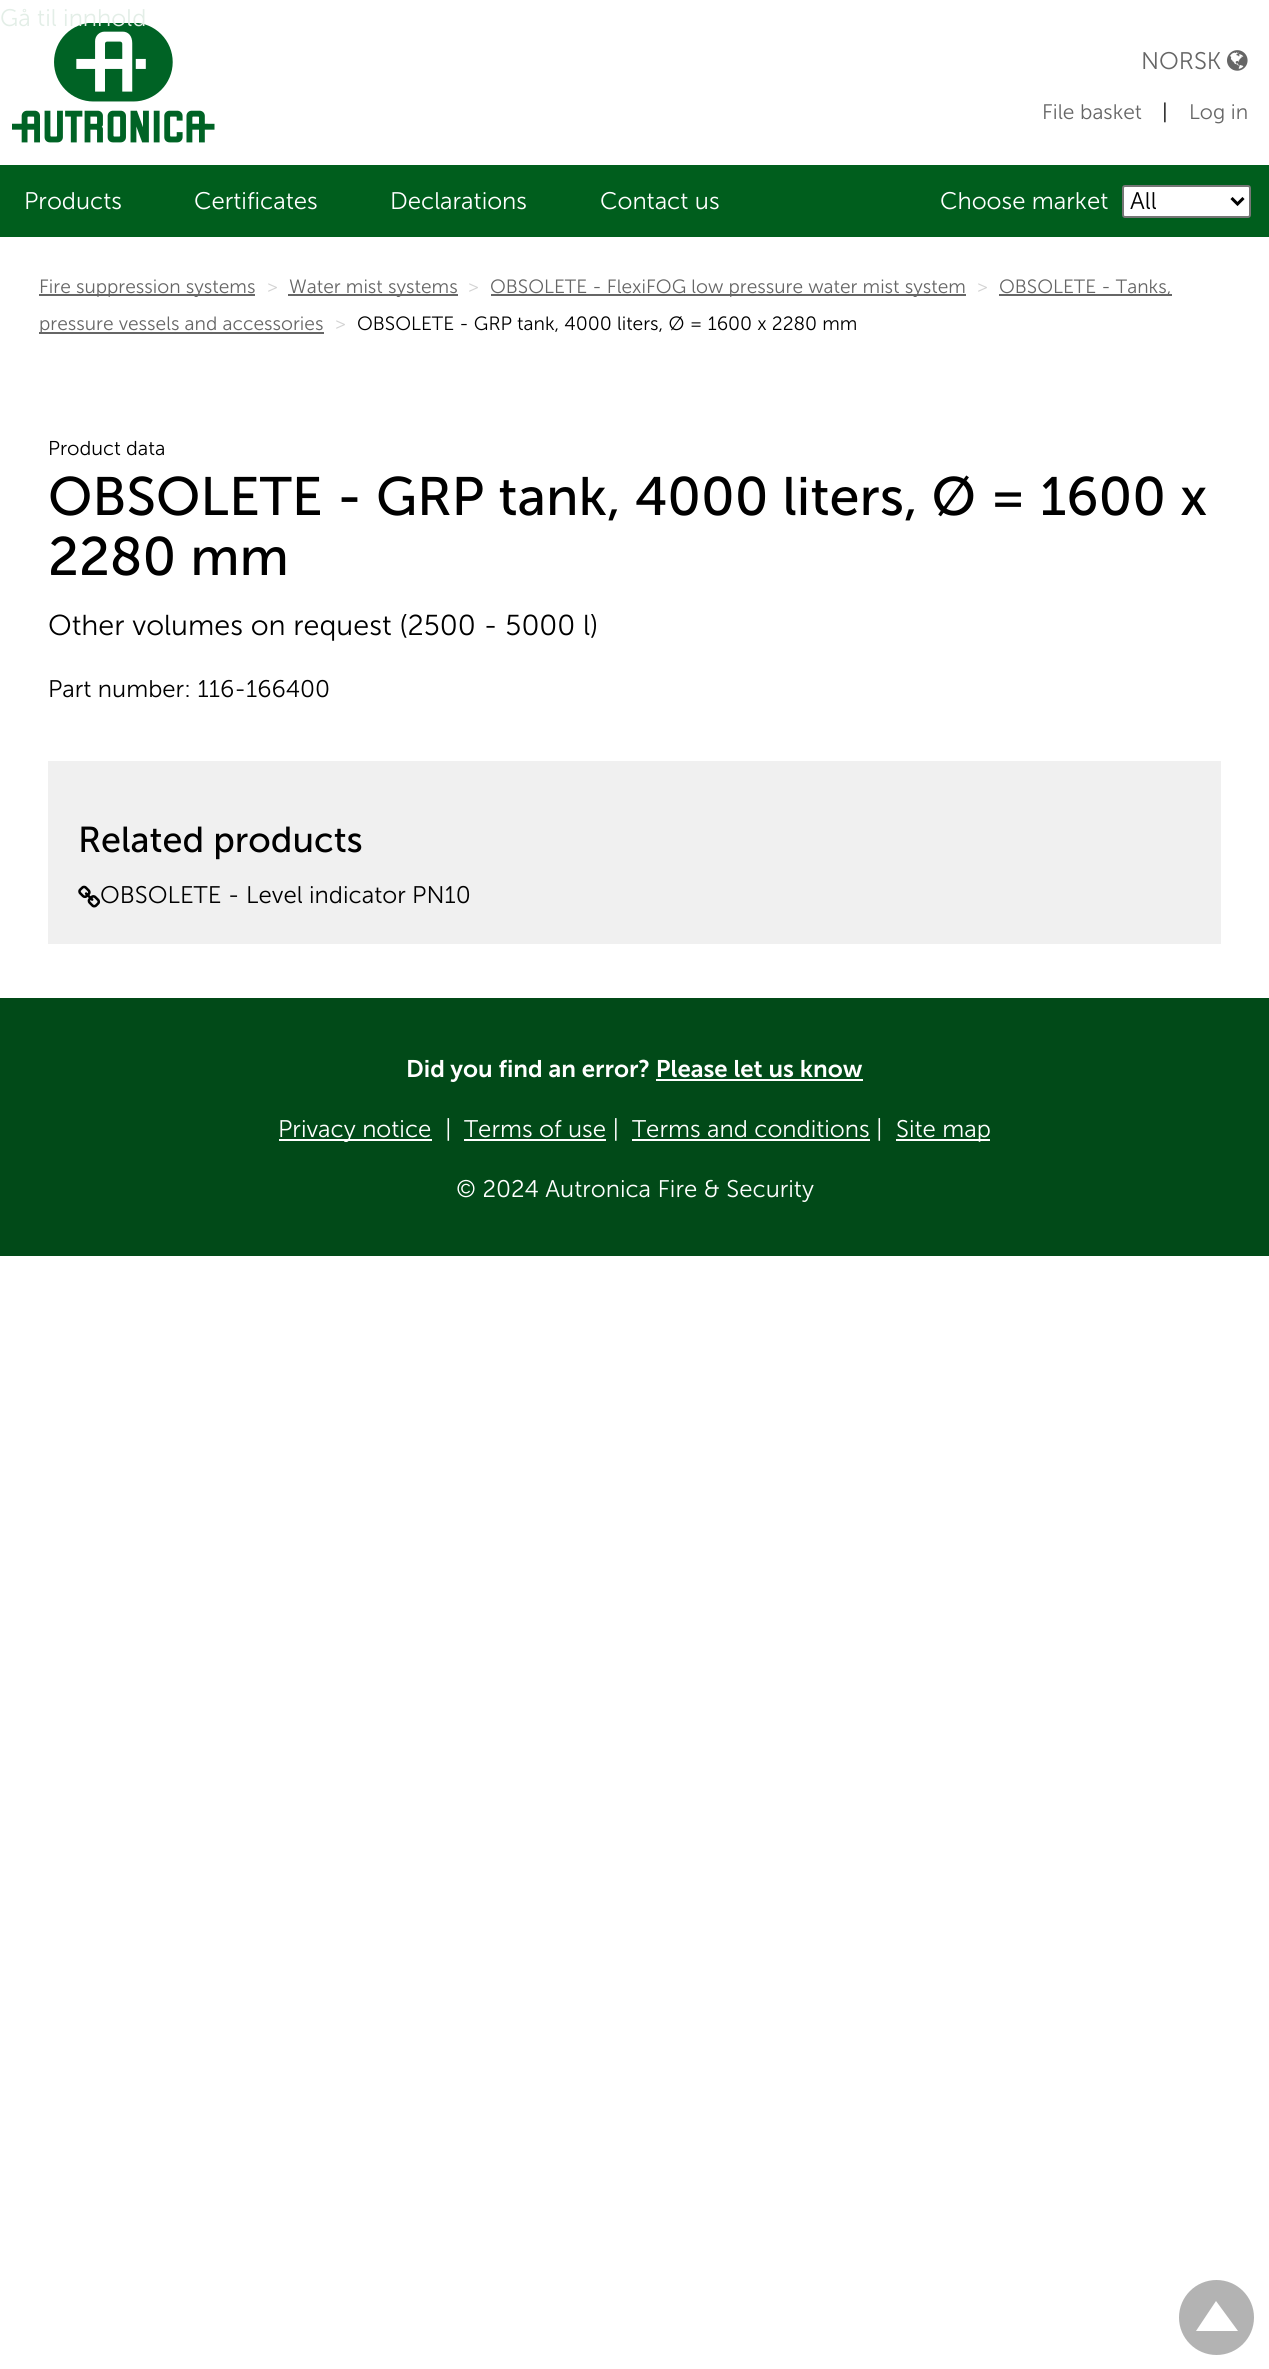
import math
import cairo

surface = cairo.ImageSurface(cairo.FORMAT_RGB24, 1269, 2369)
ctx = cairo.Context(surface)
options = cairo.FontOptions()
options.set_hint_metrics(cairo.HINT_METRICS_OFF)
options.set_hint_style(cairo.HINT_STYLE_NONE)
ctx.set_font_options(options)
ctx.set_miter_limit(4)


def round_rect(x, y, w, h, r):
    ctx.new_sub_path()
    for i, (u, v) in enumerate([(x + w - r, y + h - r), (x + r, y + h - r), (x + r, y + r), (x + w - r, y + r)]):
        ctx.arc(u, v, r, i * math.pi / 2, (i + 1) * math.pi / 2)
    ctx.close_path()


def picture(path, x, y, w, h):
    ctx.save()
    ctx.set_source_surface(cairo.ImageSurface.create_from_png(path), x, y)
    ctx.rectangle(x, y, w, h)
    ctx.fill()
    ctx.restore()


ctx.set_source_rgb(1, 1, 1)
ctx.paint()
picture("img1.png", 12, 23, 203, 120)
ctx.select_font_face("Museo Sans Light")
ctx.set_font_size(24)
ctx.set_source_rgb(0.89, 0.933, 0.906)
ctx.move_to(0, 26)
ctx.show_text("Gå til innhold")
ctx.set_source_rgb(0.4, 0.4, 0.4)
ctx.move_to(1141, 69)
ctx.show_text("NORSK")
picture("img2.png", 1227, 50, 21, 21)
ctx.set_font_size(21)
ctx.move_to(1042, 119)
ctx.show_text("File basket")
ctx.set_source_rgb(0, 0, 0)
ctx.move_to(1162, 119)
ctx.show_text("|")
ctx.set_source_rgb(0.4, 0.4, 0.4)
ctx.move_to(1189, 119)
ctx.show_text("Log in")
ctx.set_source_rgb(0, 0.369, 0.114)
ctx.rectangle(0, 165, 1269, 72)
ctx.fill()
ctx.set_font_size(24)
ctx.set_source_rgb(1, 1, 1)
ctx.move_to(24, 209)
ctx.show_text("Products")
ctx.move_to(194, 209)
ctx.show_text("Certificates")
ctx.move_to(390, 209)
ctx.show_text("Declarations")
ctx.move_to(600, 209)
ctx.show_text("Contact us")
ctx.move_to(940, 209)
ctx.show_text("Choose market")
round_rect(1123, 186, 127, 31, 2)
ctx.fill_preserve()
ctx.set_source_rgb(0.463, 0.463, 0.463)
ctx.stroke()
ctx.new_path()
ctx.move_to(1231.5, 198)
ctx.line_to(1237.5, 204)
ctx.line_to(1243.5, 198)
ctx.set_source_rgb(0, 0, 0)
ctx.set_line_width(3)
ctx.stroke()
ctx.move_to(1130, 209)
ctx.show_text("All")
ctx.set_source_rgb(0.4, 0.4, 0.4)
ctx.rectangle(39, 294, 216, 2)
ctx.fill()
ctx.set_font_size(19.2)
ctx.move_to(39, 293)
ctx.show_text("Fire suppression systems")
ctx.set_source_rgb(0.827, 0.827, 0.827)
ctx.move_to(267, 293)
ctx.show_text(">")
ctx.set_source_rgb(0.4, 0.4, 0.4)
ctx.rectangle(999, 294, 173, 2)
ctx.fill()
ctx.move_to(999, 293)
ctx.show_text("OBSOLETE - Tanks,")
ctx.rectangle(39, 332, 285, 2)
ctx.fill()
ctx.move_to(39, 330)
ctx.show_text("pressure vessels and accessories")
ctx.set_source_rgb(0.827, 0.827, 0.827)
ctx.move_to(335, 330)
ctx.show_text(">")
ctx.set_source_rgb(0.4, 0.4, 0.4)
ctx.rectangle(288, 294, 170, 2)
ctx.fill()
ctx.move_to(289, 293)
ctx.show_text("Water mist systems")
ctx.set_source_rgb(0.827, 0.827, 0.827)
ctx.move_to(468, 293)
ctx.show_text(">")
ctx.set_source_rgb(0.4, 0.4, 0.4)
ctx.rectangle(491, 294, 475, 2)
ctx.fill()
ctx.move_to(490, 293)
ctx.show_text("OBSOLETE - FlexiFOG low pressure water mist system")
ctx.set_source_rgb(0.827, 0.827, 0.827)
ctx.move_to(977, 293)
ctx.show_text(">")
ctx.set_source_rgb(0, 0, 0)
ctx.move_to(357, 330)
ctx.show_text("OBSOLETE - GRP tank, 4000 liters, Ø = 1600 x 2280 mm")
ctx.set_font_size(20)
ctx.move_to(48, 455)
ctx.show_text("Product data")
ctx.select_font_face("Museo Sans")
ctx.set_font_size(54)
ctx.move_to(48, 515)
ctx.show_text("OBSOLETE - GRP tank, 4000 liters, Ø = 1600 x")
ctx.move_to(48, 575)
ctx.show_text("2280 mm")
ctx.select_font_face("Museo Sans Light")
ctx.set_font_size(28.75)
ctx.move_to(48, 635)
ctx.show_text("Other volumes on request (2500 - 5000 l)")
ctx.set_font_size(24)
ctx.move_to(48, 697)
ctx.show_text("Part number: 116-166400")
ctx.set_source_rgb(0.941, 0.941, 0.941)
ctx.rectangle(48, 761, 1173, 183)
ctx.fill()
ctx.select_font_face("Museo Sans")
ctx.set_font_size(36)
ctx.set_source_rgb(0, 0, 0)
ctx.move_to(78, 852)
ctx.show_text("Related products")
picture("img3.png", 78, 885, 23, 23)
ctx.select_font_face("Museo Sans Light")
ctx.set_font_size(24)
ctx.move_to(100, 903)
ctx.show_text("OBSOLETE - Level indicator PN10")
ctx.set_source_rgb(0.004, 0.29, 0.094)
ctx.rectangle(0, 998, 1269, 258)
ctx.fill()
ctx.select_font_face("Museo Sans SemiBold")
ctx.set_source_rgb(1, 1, 1)
ctx.move_to(406, 1077)
ctx.show_text("Did you find an error? Please let us know")
ctx.rectangle(656, 1079, 207, 2)
ctx.fill()
ctx.rectangle(279, 1139, 153, 2)
ctx.fill()
ctx.select_font_face("Museo Sans Light")
ctx.move_to(278, 1137)
ctx.show_text("Privacy notice")
ctx.move_to(445, 1137)
ctx.show_text("|")
ctx.rectangle(464, 1139, 142, 2)
ctx.fill()
ctx.move_to(464, 1137)
ctx.show_text("Terms of use |")
ctx.rectangle(632, 1139, 238, 2)
ctx.fill()
ctx.move_to(632, 1137)
ctx.show_text("Terms and conditions |")
ctx.rectangle(896, 1139, 94, 2)
ctx.fill()
ctx.move_to(896, 1137)
ctx.show_text("Site map")
ctx.move_to(456, 1197)
ctx.show_text("© 2024 Autronica Fire & Security")
ctx.set_source_rgb(0.702, 0.702, 0.702)
ctx.new_path()
ctx.arc(1216.5, 2317.5, 37.5, 0, 2 * math.pi)
ctx.fill()
ctx.set_source_rgb(1, 1, 1)
ctx.new_path()
ctx.move_to(1238, 2331)
ctx.line_to(1196, 2331)
ctx.line_to(1216, 2301)
ctx.close_path()
ctx.fill()
surface.write_to_png("page.png")
